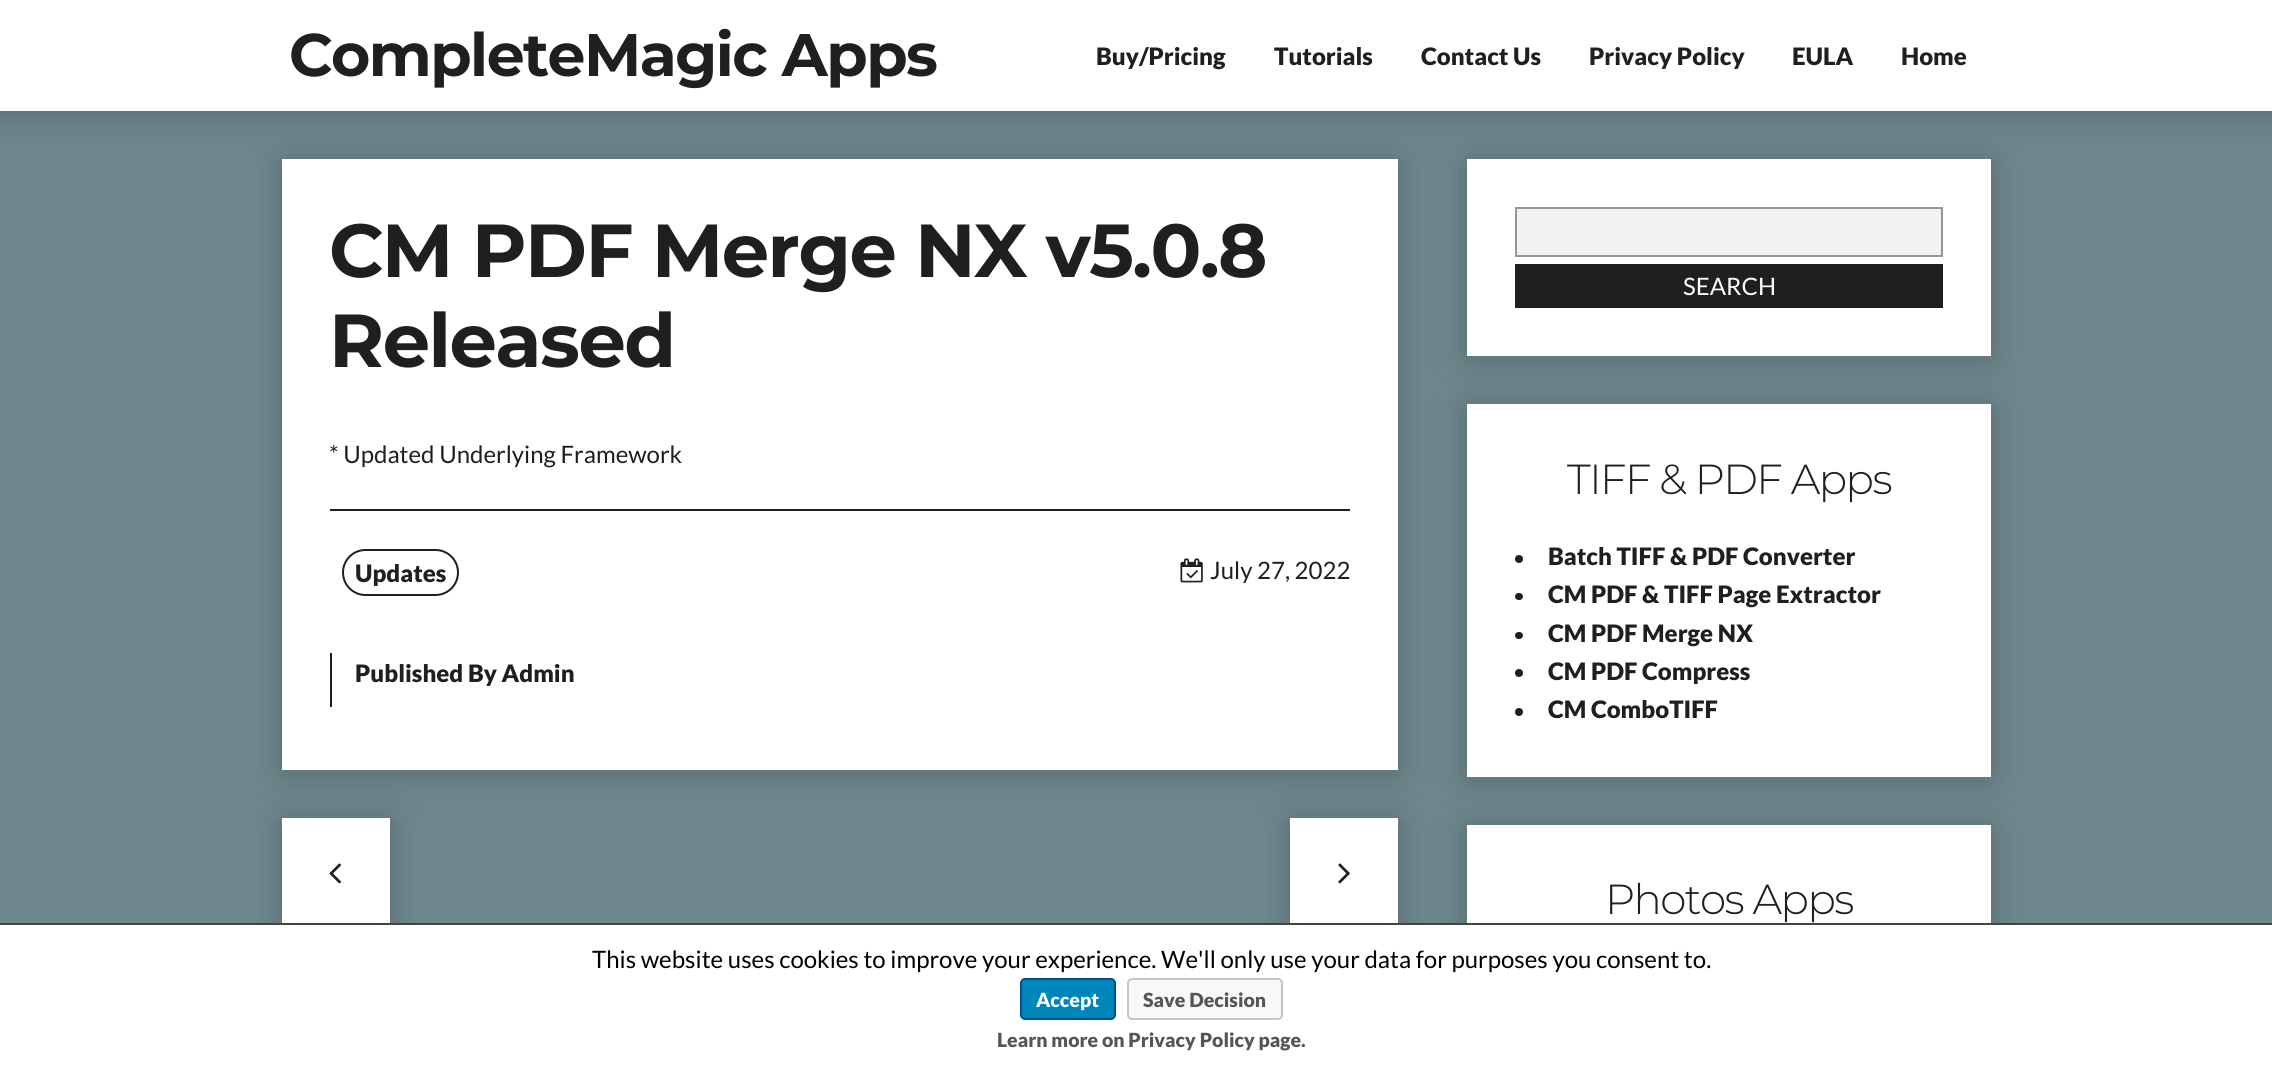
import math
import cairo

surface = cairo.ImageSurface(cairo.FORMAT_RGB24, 2272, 1076)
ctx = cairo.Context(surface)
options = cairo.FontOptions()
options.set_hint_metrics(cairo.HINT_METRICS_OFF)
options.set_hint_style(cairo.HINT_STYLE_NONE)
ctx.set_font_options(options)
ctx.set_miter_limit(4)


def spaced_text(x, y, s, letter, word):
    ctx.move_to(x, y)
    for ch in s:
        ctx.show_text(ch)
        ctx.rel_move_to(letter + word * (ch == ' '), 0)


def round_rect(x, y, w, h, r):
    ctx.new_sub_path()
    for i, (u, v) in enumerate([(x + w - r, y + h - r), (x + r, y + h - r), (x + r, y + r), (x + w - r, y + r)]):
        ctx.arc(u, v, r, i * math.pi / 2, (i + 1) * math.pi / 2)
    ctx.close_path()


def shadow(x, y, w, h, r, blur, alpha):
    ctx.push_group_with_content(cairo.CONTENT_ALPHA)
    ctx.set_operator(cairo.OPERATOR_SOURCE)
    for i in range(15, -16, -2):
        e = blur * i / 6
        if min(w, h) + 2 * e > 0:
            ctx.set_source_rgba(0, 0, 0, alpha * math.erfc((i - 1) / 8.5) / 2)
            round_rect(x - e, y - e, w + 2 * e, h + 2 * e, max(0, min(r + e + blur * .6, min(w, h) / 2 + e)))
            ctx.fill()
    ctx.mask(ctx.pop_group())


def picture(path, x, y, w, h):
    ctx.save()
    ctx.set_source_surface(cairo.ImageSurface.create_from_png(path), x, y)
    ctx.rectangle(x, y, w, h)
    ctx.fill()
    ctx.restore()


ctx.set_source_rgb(0.427, 0.529, 0.549)
ctx.paint()
ctx.set_source_rgb(0, 0, 0)
shadow(0, 3, 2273, 111, 0, 18, 0.2)
ctx.set_source_rgb(1, 1, 1)
ctx.rectangle(0, 0, 2272, 111)
ctx.fill()
ctx.select_font_face("Montserrat", cairo.FONT_SLANT_NORMAL, cairo.FONT_WEIGHT_BOLD)
ctx.set_font_size(60)
ctx.set_source_rgb(0.122, 0.122, 0.122)
spaced_text(289, 76, "CompleteMagic Apps", -1.5, 0)
ctx.select_font_face("Lato Black")
ctx.set_font_size(24)
ctx.move_to(1096, 65)
ctx.show_text("Buy/Pricing")
ctx.move_to(1274, 65)
ctx.show_text("Tutorials")
ctx.move_to(1421, 65)
ctx.show_text("Contact Us")
ctx.move_to(1589, 65)
ctx.show_text("Privacy Policy")
ctx.move_to(1792, 65)
ctx.show_text("EULA")
ctx.move_to(1901, 65)
ctx.show_text("Home")
ctx.set_source_rgb(0, 0, 0)
shadow(282, 162, 1116, 611, 0, 18, 0.2)
ctx.set_source_rgb(1, 1, 1)
ctx.rectangle(282, 159, 1116, 611)
ctx.fill()
ctx.select_font_face("Montserrat", cairo.FONT_SLANT_NORMAL, cairo.FONT_WEIGHT_BOLD)
ctx.set_font_size(75)
ctx.set_source_rgb(0.122, 0.122, 0.122)
spaced_text(329, 277, "CM PDF Merge NX v5.0.8", -1.5, 0)
spaced_text(329, 367, "Released", -1.5, 0)
ctx.select_font_face("Lato")
ctx.set_font_size(24)
ctx.move_to(329, 463)
ctx.show_text("* Updated Underlying Framework")
ctx.rectangle(330, 509, 1020, 2)
ctx.fill()
round_rect(343, 550, 115, 45, 22.5)
ctx.stroke()
ctx.select_font_face("Lato Black")
ctx.move_to(355, 582)
ctx.show_text("Updates")
picture("img1.png", 1180, 558, 23, 25)
ctx.select_font_face("Lato")
ctx.move_to(1210, 579)
ctx.show_text("July 27, 2022")
ctx.rectangle(330, 653, 2, 54)
ctx.fill()
ctx.select_font_face("Lato Black")
ctx.move_to(355, 682)
ctx.show_text("Published By Admin")
ctx.set_source_rgb(0, 0, 0)
shadow(282, 821, 108, 108, 0, 18, 0.2)
ctx.set_source_rgb(1, 1, 1)
ctx.rectangle(282, 818, 108, 105)
ctx.fill()
picture("img2.png", 329, 863, 13, 21)
ctx.set_source_rgb(0, 0, 0)
shadow(1290, 821, 108, 108, 0, 18, 0.2)
ctx.set_source_rgb(1, 1, 1)
ctx.rectangle(1290, 818, 108, 105)
ctx.fill()
picture("img3.png", 1338, 863, 12, 21)
ctx.set_source_rgb(0, 0, 0)
shadow(1467, 162, 524, 197, 0, 18, 0.2)
ctx.set_source_rgb(1, 1, 1)
ctx.rectangle(1467, 159, 524, 197)
ctx.fill()
ctx.set_source_rgb(0.953, 0.945, 0.949)
ctx.rectangle(1516, 208, 426, 48)
ctx.fill_preserve()
ctx.set_source_rgb(0.584, 0.584, 0.584)
ctx.stroke()
ctx.set_source_rgb(0.122, 0.122, 0.122)
ctx.rectangle(1515, 264, 428, 44)
ctx.fill()
ctx.select_font_face("Lato")
ctx.set_source_rgb(1, 1, 1)
ctx.move_to(1683, 295)
ctx.show_text("SEARCH")
ctx.set_source_rgb(0, 0, 0)
shadow(1467, 407, 524, 373, 0, 18, 0.2)
ctx.set_source_rgb(1, 1, 1)
ctx.rectangle(1467, 404, 524, 373)
ctx.fill()
ctx.select_font_face("Montserrat Light")
ctx.set_font_size(42)
ctx.set_source_rgb(0.122, 0.122, 0.122)
spaced_text(1567, 494, "TIFF & PDF Apps", -1.5, 0)
ctx.new_path()
ctx.arc(1519, 559, 4, 0, 2 * math.pi)
ctx.fill()
ctx.select_font_face("Lato Black")
ctx.set_font_size(24)
ctx.move_to(1548, 565)
ctx.show_text("Batch TIFF & PDF Converter")
round_rect(1515, 593, 8, 7, 3.5)
ctx.fill()
ctx.move_to(1548, 603)
ctx.show_text("CM PDF & TIFF Page Extractor")
round_rect(1515, 632, 8, 7, 3.5)
ctx.fill()
ctx.move_to(1548, 642)
ctx.show_text("CM PDF Merge NX")
ctx.new_path()
ctx.arc(1519, 673, 4, 0, 2 * math.pi)
ctx.fill()
ctx.move_to(1548, 680)
ctx.show_text("CM PDF Compress")
ctx.new_path()
ctx.arc(1519, 712, 4, 0, 2 * math.pi)
ctx.fill()
ctx.move_to(1548, 718)
ctx.show_text("CM ComboTIFF")
ctx.set_source_rgb(0, 0, 0)
shadow(1467, 828, 524, 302, 0, 18, 0.2)
ctx.set_source_rgb(1, 1, 1)
ctx.rectangle(1467, 825, 524, 98)
ctx.fill()
ctx.select_font_face("Montserrat Light")
ctx.set_font_size(42)
ctx.set_source_rgb(0.122, 0.122, 0.122)
spaced_text(1605, 914, "Photos Apps", -1.5, 0)
ctx.set_source_rgb(1, 1, 1)
ctx.rectangle(0, 925, 2272, 151)
ctx.fill()
ctx.set_source_rgb(0.267, 0.267, 0.267)
ctx.rectangle(0, 923, 2272, 2)
ctx.fill()
ctx.select_font_face("Lato")
ctx.set_font_size(24)
ctx.set_source_rgb(0, 0, 0)
ctx.move_to(592, 968)
ctx.show_text("This website uses cookies to improve your experience. We'll only use your data for purposes you consent to.")
ctx.set_source_rgb(0, 0.522, 0.729)
round_rect(1021, 979, 94, 40, 4)
ctx.fill_preserve()
ctx.set_source_rgb(0, 0.325, 0.533)
ctx.stroke()
ctx.select_font_face("Lato Black")
ctx.set_font_size(19.5)
ctx.set_source_rgb(1, 1, 1)
ctx.move_to(1036, 1007)
ctx.show_text("Accept")
ctx.set_source_rgb(0.969, 0.969, 0.969)
round_rect(1128, 979, 154, 40, 4)
ctx.fill_preserve()
ctx.set_source_rgb(0.773, 0.773, 0.773)
ctx.stroke()
ctx.set_source_rgb(0.333, 0.333, 0.333)
ctx.move_to(1143, 1007)
ctx.show_text("Save Decision")
ctx.move_to(997, 1047)
ctx.show_text("Learn more on Privacy Policy page.")
surface.write_to_png("page.png")
